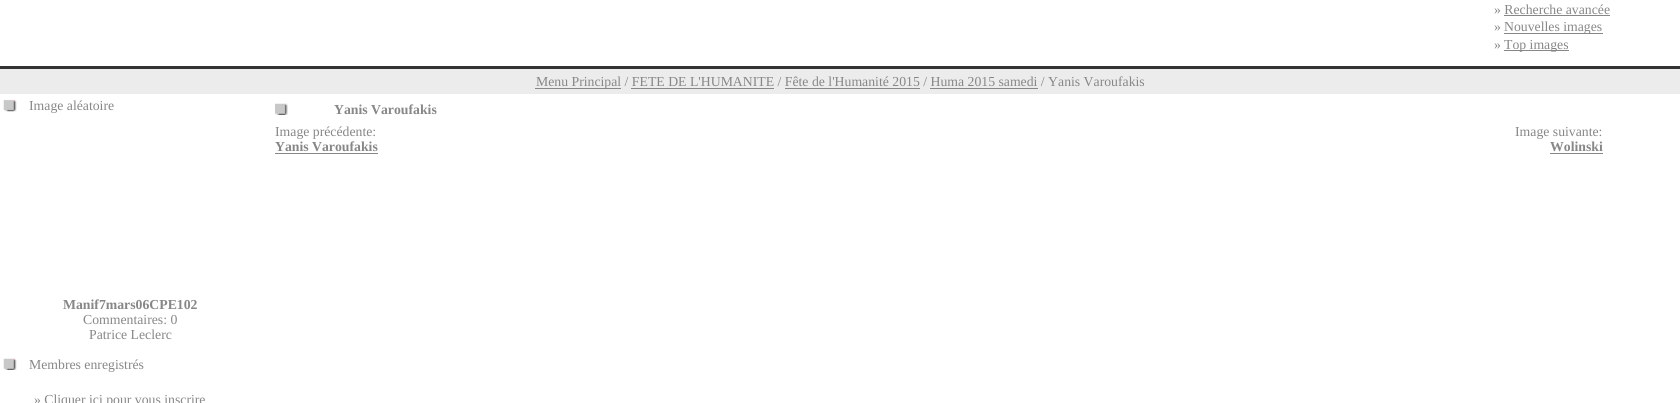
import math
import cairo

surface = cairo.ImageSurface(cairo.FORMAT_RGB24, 1680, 403)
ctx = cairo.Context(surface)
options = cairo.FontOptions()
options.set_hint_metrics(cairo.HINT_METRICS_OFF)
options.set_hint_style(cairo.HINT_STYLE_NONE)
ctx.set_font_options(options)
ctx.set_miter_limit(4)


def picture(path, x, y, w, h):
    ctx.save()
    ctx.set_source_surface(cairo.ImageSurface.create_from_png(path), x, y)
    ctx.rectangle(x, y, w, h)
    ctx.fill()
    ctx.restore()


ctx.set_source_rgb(1, 1, 1)
ctx.paint()
ctx.select_font_face("Liberation Serif")
ctx.set_font_size(13.75)
ctx.set_source_rgb(0.529, 0.529, 0.529)
ctx.move_to(1494, 14)
ctx.show_text("» Recherche avancée")
ctx.rectangle(1504, 15, 106, 1)
ctx.fill()
ctx.move_to(1494, 31)
ctx.show_text("»")
ctx.rectangle(1504, 33, 99, 1)
ctx.fill()
ctx.move_to(1504, 31)
ctx.show_text("Nouvelles images")
ctx.move_to(1494, 49)
ctx.show_text("»")
ctx.rectangle(1504, 50, 65, 1)
ctx.fill()
ctx.move_to(1504, 49)
ctx.show_text("Top images")
ctx.set_source_rgb(0.2, 0.2, 0.2)
ctx.rectangle(0, 66, 1680, 3)
ctx.fill()
ctx.set_source_rgb(0.922, 0.922, 0.922)
ctx.rectangle(0, 69, 1680, 25)
ctx.fill()
ctx.set_source_rgb(0.529, 0.529, 0.529)
ctx.rectangle(535, 88, 86, 1)
ctx.fill()
ctx.move_to(536, 86)
ctx.show_text("Menu Principal / FETE DE L'HUMANITE / Fête de l'Humanité 2015 / Huma 2015 samedi / Yanis Varoufakis")
ctx.rectangle(631, 88, 143, 1)
ctx.fill()
ctx.rectangle(785, 88, 135, 1)
ctx.fill()
ctx.rectangle(930, 88, 108, 1)
ctx.fill()
picture("img1.png", 3, 99, 14, 13)
ctx.move_to(29, 110)
ctx.show_text("Image aléatoire")
ctx.select_font_face("Liberation Serif", cairo.FONT_SLANT_NORMAL, cairo.FONT_WEIGHT_BOLD)
ctx.move_to(63, 309)
ctx.show_text("Manif7mars06CPE102")
ctx.select_font_face("Liberation Serif")
ctx.move_to(83, 324)
ctx.show_text("Commentaires: 0")
ctx.move_to(89, 339)
ctx.show_text("Patrice Leclerc")
picture("img2.png", 3, 358, 14, 12)
ctx.move_to(29, 369)
ctx.show_text("Membres enregistrés")
ctx.move_to(34, 404)
ctx.show_text("» Cliquer ici pour vous inscrire")
picture("img3.png", 275, 103, 13, 12)
ctx.select_font_face("Liberation Serif", cairo.FONT_SLANT_NORMAL, cairo.FONT_WEIGHT_BOLD)
ctx.move_to(334, 114)
ctx.show_text("Yanis Varoufakis")
ctx.select_font_face("Liberation Serif")
ctx.move_to(275, 136)
ctx.show_text("Image précédente:")
ctx.select_font_face("Liberation Serif", cairo.FONT_SLANT_NORMAL, cairo.FONT_WEIGHT_BOLD)
ctx.move_to(275, 151)
ctx.show_text("Yanis Varoufakis")
ctx.rectangle(275, 153, 103, 1)
ctx.fill()
ctx.select_font_face("Liberation Serif")
ctx.move_to(1515, 136)
ctx.show_text("Image suivante:")
ctx.select_font_face("Liberation Serif", cairo.FONT_SLANT_NORMAL, cairo.FONT_WEIGHT_BOLD)
ctx.move_to(1550, 151)
ctx.show_text("Wolinski")
ctx.rectangle(1550, 153, 53, 1)
ctx.fill()
surface.write_to_png("page.png")
